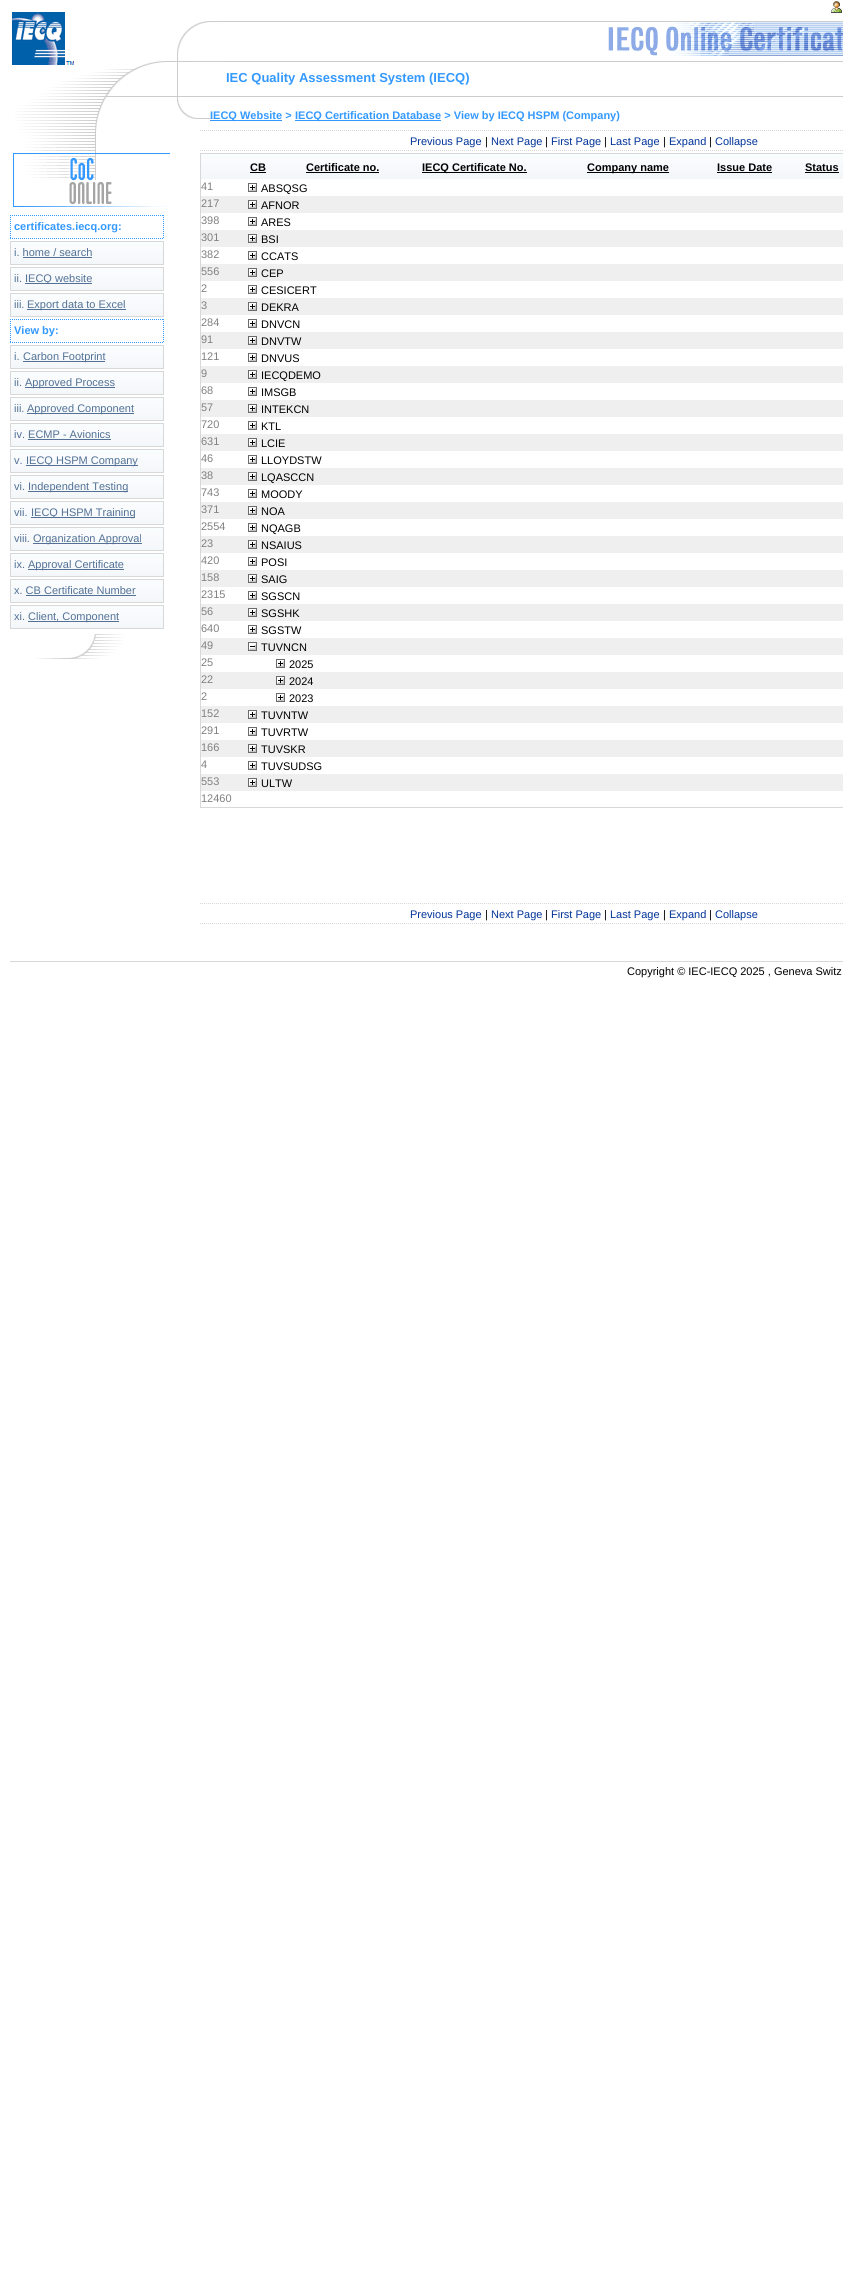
import math
import cairo

surface = cairo.ImageSurface(cairo.FORMAT_RGB24, 843, 2280)
ctx = cairo.Context(surface)
options = cairo.FontOptions()
options.set_hint_metrics(cairo.HINT_METRICS_OFF)
options.set_hint_style(cairo.HINT_STYLE_NONE)
ctx.set_font_options(options)
ctx.set_miter_limit(4)


def picture(path, x, y, w, h):
    ctx.save()
    ctx.set_source_surface(cairo.ImageSurface.create_from_png(path), x, y)
    ctx.rectangle(x, y, w, h)
    ctx.fill()
    ctx.restore()


ctx.set_source_rgb(1, 1, 1)
ctx.paint()
picture("img1.png", 831, 1, 11, 12)
picture("img2.png", 12, 12, 158, 88)
picture("img3.png", 170, 21, 673, 79)
ctx.select_font_face("Liberation Sans", cairo.FONT_SLANT_NORMAL, cairo.FONT_WEIGHT_BOLD)
ctx.set_font_size(13)
ctx.set_source_rgb(0.2, 0.6, 1)
ctx.move_to(226, 82)
ctx.show_text("IEC Quality Assessment System (IECQ)")
picture("img4.png", 15, 100, 90, 47)
picture("img5.png", 13, 147, 157, 60)
ctx.new_path()
ctx.move_to(10, 215.5)
ctx.line_to(164, 215.5)
ctx.set_line_width(1)
ctx.set_dash([1, 1])
ctx.stroke()
ctx.new_path()
ctx.move_to(163.5, 215)
ctx.line_to(163.5, 239)
ctx.stroke()
ctx.new_path()
ctx.move_to(10, 238.5)
ctx.line_to(164, 238.5)
ctx.stroke()
ctx.new_path()
ctx.move_to(10.5, 215)
ctx.line_to(10.5, 239)
ctx.stroke()
ctx.set_font_size(11)
ctx.move_to(14, 230)
ctx.show_text("certificates.iecq.org:")
picture("img6.png", 11, 242, 152, 22)
ctx.rectangle(10.5, 241.5, 153, 23)
ctx.set_source_rgb(0.847, 0.847, 0.847)
ctx.set_dash([])
ctx.stroke()
ctx.select_font_face("Liberation Sans")
ctx.set_source_rgb(0.325, 0.443, 0.584)
ctx.move_to(14, 256)
ctx.show_text("i. home / search")
ctx.rectangle(23, 257, 69, 1)
ctx.fill()
picture("img6.png", 11, 268, 152, 22)
ctx.rectangle(10.5, 267.5, 153, 23)
ctx.set_source_rgb(0.847, 0.847, 0.847)
ctx.stroke()
ctx.set_source_rgb(0.325, 0.443, 0.584)
ctx.move_to(14, 282)
ctx.show_text("ii.")
ctx.rectangle(25, 283, 67, 1)
ctx.fill()
ctx.move_to(25, 282)
ctx.show_text("IECQ website")
picture("img6.png", 11, 294, 152, 22)
ctx.rectangle(10.5, 293.5, 153, 23)
ctx.set_source_rgb(0.847, 0.847, 0.847)
ctx.stroke()
ctx.set_source_rgb(0.325, 0.443, 0.584)
ctx.move_to(14, 308)
ctx.show_text("iii.")
ctx.rectangle(27, 309, 99, 1)
ctx.fill()
ctx.move_to(27, 308)
ctx.show_text("Export data to Excel")
ctx.new_path()
ctx.move_to(10, 319.5)
ctx.line_to(164, 319.5)
ctx.set_source_rgb(0.2, 0.6, 1)
ctx.set_dash([1, 1])
ctx.stroke()
ctx.new_path()
ctx.move_to(163.5, 319)
ctx.line_to(163.5, 343)
ctx.stroke()
ctx.new_path()
ctx.move_to(10, 342.5)
ctx.line_to(164, 342.5)
ctx.stroke()
ctx.new_path()
ctx.move_to(10.5, 319)
ctx.line_to(10.5, 343)
ctx.stroke()
ctx.select_font_face("Liberation Sans", cairo.FONT_SLANT_NORMAL, cairo.FONT_WEIGHT_BOLD)
ctx.move_to(14, 334)
ctx.show_text("View by:")
picture("img6.png", 11, 346, 152, 22)
ctx.rectangle(10.5, 345.5, 153, 23)
ctx.set_source_rgb(0.847, 0.847, 0.847)
ctx.set_dash([])
ctx.stroke()
ctx.select_font_face("Liberation Sans")
ctx.set_source_rgb(0.325, 0.443, 0.584)
ctx.move_to(14, 360)
ctx.show_text("i.")
ctx.rectangle(23, 361, 82, 1)
ctx.fill()
ctx.move_to(23, 360)
ctx.show_text("Carbon Footprint")
picture("img6.png", 11, 372, 152, 22)
ctx.rectangle(10.5, 371.5, 153, 23)
ctx.set_source_rgb(0.847, 0.847, 0.847)
ctx.stroke()
ctx.set_source_rgb(0.325, 0.443, 0.584)
ctx.move_to(14, 386)
ctx.show_text("ii.")
ctx.rectangle(25, 387, 90, 1)
ctx.fill()
ctx.move_to(25, 386)
ctx.show_text("Approved Process")
picture("img6.png", 11, 398, 152, 22)
ctx.rectangle(10.5, 397.5, 153, 23)
ctx.set_source_rgb(0.847, 0.847, 0.847)
ctx.stroke()
ctx.set_source_rgb(0.325, 0.443, 0.584)
ctx.move_to(14, 412)
ctx.show_text("iii.")
ctx.rectangle(27, 413, 107, 1)
ctx.fill()
ctx.move_to(27, 412)
ctx.show_text("Approved Component")
picture("img6.png", 11, 424, 152, 22)
ctx.rectangle(10.5, 423.5, 153, 23)
ctx.set_source_rgb(0.847, 0.847, 0.847)
ctx.stroke()
ctx.set_source_rgb(0.325, 0.443, 0.584)
ctx.move_to(14, 438)
ctx.show_text("iv. ECMP - Avionics")
ctx.rectangle(28, 439, 83, 1)
ctx.fill()
picture("img6.png", 11, 450, 152, 22)
ctx.rectangle(10.5, 449.5, 153, 23)
ctx.set_source_rgb(0.847, 0.847, 0.847)
ctx.stroke()
ctx.set_source_rgb(0.325, 0.443, 0.584)
ctx.move_to(14, 464)
ctx.show_text("v.")
ctx.rectangle(26, 465, 112, 1)
ctx.fill()
ctx.move_to(26, 464)
ctx.show_text("IECQ HSPM Company")
picture("img6.png", 11, 476, 152, 22)
ctx.rectangle(10.5, 475.5, 153, 23)
ctx.set_source_rgb(0.847, 0.847, 0.847)
ctx.stroke()
ctx.set_source_rgb(0.325, 0.443, 0.584)
ctx.move_to(14, 490)
ctx.show_text("vi.")
ctx.rectangle(28, 491, 100, 1)
ctx.fill()
ctx.move_to(28, 490)
ctx.show_text("Independent Testing")
picture("img6.png", 11, 502, 152, 22)
ctx.rectangle(10.5, 501.5, 153, 23)
ctx.set_source_rgb(0.847, 0.847, 0.847)
ctx.stroke()
ctx.set_source_rgb(0.325, 0.443, 0.584)
ctx.move_to(14, 516)
ctx.show_text("vii.")
ctx.rectangle(31, 517, 104, 1)
ctx.fill()
ctx.move_to(31, 516)
ctx.show_text("IECQ HSPM Training")
picture("img6.png", 11, 528, 152, 22)
ctx.rectangle(10.5, 527.5, 153, 23)
ctx.set_source_rgb(0.847, 0.847, 0.847)
ctx.stroke()
ctx.set_source_rgb(0.325, 0.443, 0.584)
ctx.move_to(14, 542)
ctx.show_text("viii.")
ctx.rectangle(33, 543, 109, 1)
ctx.fill()
ctx.move_to(33, 542)
ctx.show_text("Organization Approval")
picture("img6.png", 11, 554, 152, 22)
ctx.rectangle(10.5, 553.5, 153, 23)
ctx.set_source_rgb(0.847, 0.847, 0.847)
ctx.stroke()
ctx.set_source_rgb(0.325, 0.443, 0.584)
ctx.move_to(14, 568)
ctx.show_text("ix.")
ctx.rectangle(28, 569, 96, 1)
ctx.fill()
ctx.move_to(28, 568)
ctx.show_text("Approval Certificate")
picture("img6.png", 11, 580, 152, 22)
ctx.rectangle(10.5, 579.5, 153, 23)
ctx.set_source_rgb(0.847, 0.847, 0.847)
ctx.stroke()
ctx.set_source_rgb(0.325, 0.443, 0.584)
ctx.move_to(14, 594)
ctx.show_text("x. CB Certificate Number")
ctx.rectangle(26, 595, 110, 1)
ctx.fill()
picture("img6.png", 11, 606, 152, 22)
ctx.rectangle(10.5, 605.5, 153, 23)
ctx.set_source_rgb(0.847, 0.847, 0.847)
ctx.stroke()
ctx.set_source_rgb(0.325, 0.443, 0.584)
ctx.move_to(14, 620)
ctx.show_text("xi.")
ctx.rectangle(28, 621, 91, 1)
ctx.fill()
ctx.move_to(28, 620)
ctx.show_text("Client, Component")
picture("img7.png", 36, 634, 88, 25)
ctx.new_path()
ctx.move_to(200, 130.5)
ctx.line_to(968, 130.5)
ctx.set_source_rgb(0.847, 0.847, 0.847)
ctx.set_dash([1, 1])
ctx.stroke()
ctx.new_path()
ctx.move_to(200, 150.5)
ctx.line_to(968, 150.5)
ctx.stroke()
ctx.set_source_rgb(0, 0.2, 0.6)
ctx.move_to(410, 145)
ctx.show_text("Previous Page")
ctx.set_source_rgb(0, 0, 0)
ctx.move_to(485, 145)
ctx.show_text("|")
ctx.set_source_rgb(0, 0.2, 0.6)
ctx.move_to(491, 145)
ctx.show_text("Next Page")
ctx.set_source_rgb(0, 0, 0)
ctx.move_to(545, 145)
ctx.show_text("|")
ctx.set_source_rgb(0, 0.2, 0.6)
ctx.move_to(551, 145)
ctx.show_text("First Page")
ctx.set_source_rgb(0, 0, 0)
ctx.move_to(604, 145)
ctx.show_text("|")
ctx.set_source_rgb(0, 0.2, 0.6)
ctx.move_to(610, 145)
ctx.show_text("Last Page")
ctx.set_source_rgb(0, 0, 0)
ctx.move_to(663, 145)
ctx.show_text("|")
ctx.set_source_rgb(0, 0.2, 0.6)
ctx.move_to(669, 145)
ctx.show_text("Expand")
ctx.set_source_rgb(0, 0, 0)
ctx.move_to(709, 145)
ctx.show_text("|")
ctx.set_source_rgb(0, 0.2, 0.6)
ctx.move_to(715, 145)
ctx.show_text("Collapse")
ctx.rectangle(200.5, 153.5, 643, 654)
ctx.set_source_rgb(0.847, 0.847, 0.847)
ctx.set_dash([])
ctx.stroke()
picture("img8.png", 201, 154, 47, 25)
picture("img9.png", 248, 154, 28, 25)
ctx.select_font_face("Liberation Sans", cairo.FONT_SLANT_NORMAL, cairo.FONT_WEIGHT_BOLD)
ctx.set_source_rgb(0, 0, 0)
ctx.move_to(250, 171)
ctx.show_text("CB")
ctx.rectangle(250, 172, 16, 1)
ctx.fill()
picture("img9.png", 276, 154, 28, 25)
picture("img10.png", 304, 154, 116, 25)
ctx.move_to(306, 171)
ctx.show_text("Certificate no.")
ctx.rectangle(306, 172, 73, 1)
ctx.fill()
picture("img11.png", 420, 154, 165, 25)
ctx.rectangle(422, 172, 105, 1)
ctx.fill()
ctx.move_to(422, 171)
ctx.show_text("IECQ Certificate No.")
picture("img12.png", 585, 154, 130, 25)
ctx.rectangle(587, 172, 82, 1)
ctx.fill()
ctx.move_to(587, 171)
ctx.show_text("Company name")
picture("img13.png", 715, 154, 88, 25)
ctx.move_to(717, 171)
ctx.show_text("Issue Date")
ctx.rectangle(717, 172, 55, 1)
ctx.fill()
picture("img14.png", 803, 154, 40, 25)
ctx.move_to(805, 171)
ctx.show_text("Status")
ctx.rectangle(805, 172, 34, 1)
ctx.fill()
ctx.select_font_face("Liberation Sans")
ctx.set_source_rgb(0.502, 0.502, 0.502)
ctx.move_to(201, 190)
ctx.show_text("41")
picture("img15.png", 248, 183, 9, 9)
ctx.set_source_rgb(0, 0, 0)
ctx.move_to(261, 192)
ctx.show_text("ABSQSG")
ctx.set_source_rgb(0.937, 0.937, 0.937)
ctx.rectangle(201, 196, 642, 17)
ctx.fill()
ctx.set_source_rgb(0.502, 0.502, 0.502)
ctx.move_to(201, 207)
ctx.show_text("217")
picture("img15.png", 248, 200, 9, 9)
ctx.set_source_rgb(0, 0, 0)
ctx.move_to(261, 209)
ctx.show_text("AFNOR")
ctx.set_source_rgb(0.502, 0.502, 0.502)
ctx.move_to(201, 224)
ctx.show_text("398")
picture("img15.png", 248, 217, 9, 9)
ctx.set_source_rgb(0, 0, 0)
ctx.move_to(261, 226)
ctx.show_text("ARES")
ctx.set_source_rgb(0.937, 0.937, 0.937)
ctx.rectangle(201, 230, 642, 17)
ctx.fill()
ctx.set_source_rgb(0.502, 0.502, 0.502)
ctx.move_to(201, 241)
ctx.show_text("301")
picture("img15.png", 248, 234, 9, 9)
ctx.set_source_rgb(0, 0, 0)
ctx.move_to(261, 243)
ctx.show_text("BSI")
ctx.set_source_rgb(0.502, 0.502, 0.502)
ctx.move_to(201, 258)
ctx.show_text("382")
picture("img15.png", 248, 251, 9, 9)
ctx.set_source_rgb(0, 0, 0)
ctx.move_to(261, 260)
ctx.show_text("CCATS")
ctx.set_source_rgb(0.937, 0.937, 0.937)
ctx.rectangle(201, 264, 642, 17)
ctx.fill()
ctx.set_source_rgb(0.502, 0.502, 0.502)
ctx.move_to(201, 275)
ctx.show_text("556")
picture("img15.png", 248, 268, 9, 9)
ctx.set_source_rgb(0, 0, 0)
ctx.move_to(261, 277)
ctx.show_text("CEP")
ctx.set_source_rgb(0.502, 0.502, 0.502)
ctx.move_to(201, 292)
ctx.show_text("2")
picture("img15.png", 248, 285, 9, 9)
ctx.set_source_rgb(0, 0, 0)
ctx.move_to(261, 294)
ctx.show_text("CESICERT")
ctx.set_source_rgb(0.937, 0.937, 0.937)
ctx.rectangle(201, 298, 642, 17)
ctx.fill()
ctx.set_source_rgb(0.502, 0.502, 0.502)
ctx.move_to(201, 309)
ctx.show_text("3")
picture("img15.png", 248, 302, 9, 9)
ctx.set_source_rgb(0, 0, 0)
ctx.move_to(261, 311)
ctx.show_text("DEKRA")
ctx.set_source_rgb(0.502, 0.502, 0.502)
ctx.move_to(201, 326)
ctx.show_text("284")
picture("img15.png", 248, 319, 9, 9)
ctx.set_source_rgb(0, 0, 0)
ctx.move_to(261, 328)
ctx.show_text("DNVCN")
ctx.set_source_rgb(0.937, 0.937, 0.937)
ctx.rectangle(201, 332, 642, 17)
ctx.fill()
ctx.set_source_rgb(0.502, 0.502, 0.502)
ctx.move_to(201, 343)
ctx.show_text("91")
picture("img15.png", 248, 336, 9, 9)
ctx.set_source_rgb(0, 0, 0)
ctx.move_to(261, 345)
ctx.show_text("DNVTW")
ctx.set_source_rgb(0.502, 0.502, 0.502)
ctx.move_to(201, 360)
ctx.show_text("121")
picture("img15.png", 248, 353, 9, 9)
ctx.set_source_rgb(0, 0, 0)
ctx.move_to(261, 362)
ctx.show_text("DNVUS")
ctx.set_source_rgb(0.937, 0.937, 0.937)
ctx.rectangle(201, 366, 642, 17)
ctx.fill()
ctx.set_source_rgb(0.502, 0.502, 0.502)
ctx.move_to(201, 377)
ctx.show_text("9")
picture("img15.png", 248, 370, 9, 9)
ctx.set_source_rgb(0, 0, 0)
ctx.move_to(261, 379)
ctx.show_text("IECQDEMO")
ctx.set_source_rgb(0.502, 0.502, 0.502)
ctx.move_to(201, 394)
ctx.show_text("68")
picture("img15.png", 248, 387, 9, 9)
ctx.set_source_rgb(0, 0, 0)
ctx.move_to(261, 396)
ctx.show_text("IMSGB")
ctx.set_source_rgb(0.937, 0.937, 0.937)
ctx.rectangle(201, 400, 642, 17)
ctx.fill()
ctx.set_source_rgb(0.502, 0.502, 0.502)
ctx.move_to(201, 411)
ctx.show_text("57")
picture("img15.png", 248, 404, 9, 9)
ctx.set_source_rgb(0, 0, 0)
ctx.move_to(261, 413)
ctx.show_text("INTEKCN")
ctx.set_source_rgb(0.502, 0.502, 0.502)
ctx.move_to(201, 428)
ctx.show_text("720")
picture("img15.png", 248, 421, 9, 9)
ctx.set_source_rgb(0, 0, 0)
ctx.move_to(261, 430)
ctx.show_text("KTL")
ctx.set_source_rgb(0.937, 0.937, 0.937)
ctx.rectangle(201, 434, 642, 17)
ctx.fill()
ctx.set_source_rgb(0.502, 0.502, 0.502)
ctx.move_to(201, 445)
ctx.show_text("631")
picture("img15.png", 248, 438, 9, 9)
ctx.set_source_rgb(0, 0, 0)
ctx.move_to(261, 447)
ctx.show_text("LCIE")
ctx.set_source_rgb(0.502, 0.502, 0.502)
ctx.move_to(201, 462)
ctx.show_text("46")
picture("img15.png", 248, 455, 9, 9)
ctx.set_source_rgb(0, 0, 0)
ctx.move_to(261, 464)
ctx.show_text("LLOYDSTW")
ctx.set_source_rgb(0.937, 0.937, 0.937)
ctx.rectangle(201, 468, 642, 17)
ctx.fill()
ctx.set_source_rgb(0.502, 0.502, 0.502)
ctx.move_to(201, 479)
ctx.show_text("38")
picture("img15.png", 248, 472, 9, 9)
ctx.set_source_rgb(0, 0, 0)
ctx.move_to(261, 481)
ctx.show_text("LQASCCN")
ctx.set_source_rgb(0.502, 0.502, 0.502)
ctx.move_to(201, 496)
ctx.show_text("743")
picture("img15.png", 248, 489, 9, 9)
ctx.set_source_rgb(0, 0, 0)
ctx.move_to(261, 498)
ctx.show_text("MOODY")
ctx.set_source_rgb(0.937, 0.937, 0.937)
ctx.rectangle(201, 502, 642, 17)
ctx.fill()
ctx.set_source_rgb(0.502, 0.502, 0.502)
ctx.move_to(201, 513)
ctx.show_text("371")
picture("img15.png", 248, 506, 9, 9)
ctx.set_source_rgb(0, 0, 0)
ctx.move_to(261, 515)
ctx.show_text("NOA")
ctx.set_source_rgb(0.502, 0.502, 0.502)
ctx.move_to(201, 530)
ctx.show_text("2554")
picture("img15.png", 248, 523, 9, 9)
ctx.set_source_rgb(0, 0, 0)
ctx.move_to(261, 532)
ctx.show_text("NQAGB")
ctx.set_source_rgb(0.937, 0.937, 0.937)
ctx.rectangle(201, 536, 642, 17)
ctx.fill()
ctx.set_source_rgb(0.502, 0.502, 0.502)
ctx.move_to(201, 547)
ctx.show_text("23")
picture("img15.png", 248, 540, 9, 9)
ctx.set_source_rgb(0, 0, 0)
ctx.move_to(261, 549)
ctx.show_text("NSAIUS")
ctx.set_source_rgb(0.502, 0.502, 0.502)
ctx.move_to(201, 564)
ctx.show_text("420")
picture("img15.png", 248, 557, 9, 9)
ctx.set_source_rgb(0, 0, 0)
ctx.move_to(261, 566)
ctx.show_text("POSI")
ctx.set_source_rgb(0.937, 0.937, 0.937)
ctx.rectangle(201, 570, 642, 17)
ctx.fill()
ctx.set_source_rgb(0.502, 0.502, 0.502)
ctx.move_to(201, 581)
ctx.show_text("158")
picture("img15.png", 248, 574, 9, 9)
ctx.set_source_rgb(0, 0, 0)
ctx.move_to(261, 583)
ctx.show_text("SAIG")
ctx.set_source_rgb(0.502, 0.502, 0.502)
ctx.move_to(201, 598)
ctx.show_text("2315")
picture("img15.png", 248, 591, 9, 9)
ctx.set_source_rgb(0, 0, 0)
ctx.move_to(261, 600)
ctx.show_text("SGSCN")
ctx.set_source_rgb(0.937, 0.937, 0.937)
ctx.rectangle(201, 604, 642, 17)
ctx.fill()
ctx.set_source_rgb(0.502, 0.502, 0.502)
ctx.move_to(201, 615)
ctx.show_text("56")
picture("img15.png", 248, 608, 9, 9)
ctx.set_source_rgb(0, 0, 0)
ctx.move_to(261, 617)
ctx.show_text("SGSHK")
ctx.set_source_rgb(0.502, 0.502, 0.502)
ctx.move_to(201, 632)
ctx.show_text("640")
picture("img15.png", 248, 625, 9, 9)
ctx.set_source_rgb(0, 0, 0)
ctx.move_to(261, 634)
ctx.show_text("SGSTW")
ctx.set_source_rgb(0.937, 0.937, 0.937)
ctx.rectangle(201, 638, 642, 17)
ctx.fill()
ctx.set_source_rgb(0.502, 0.502, 0.502)
ctx.move_to(201, 649)
ctx.show_text("49")
picture("img16.png", 248, 642, 9, 9)
ctx.set_source_rgb(0, 0, 0)
ctx.move_to(261, 651)
ctx.show_text("TUVNCN")
ctx.set_source_rgb(0.502, 0.502, 0.502)
ctx.move_to(201, 666)
ctx.show_text("25")
picture("img15.png", 276, 659, 9, 9)
ctx.set_source_rgb(0, 0, 0)
ctx.move_to(289, 668)
ctx.show_text("2025")
ctx.set_source_rgb(0.937, 0.937, 0.937)
ctx.rectangle(201, 672, 642, 17)
ctx.fill()
ctx.set_source_rgb(0.502, 0.502, 0.502)
ctx.move_to(201, 683)
ctx.show_text("22")
picture("img15.png", 276, 676, 9, 9)
ctx.set_source_rgb(0, 0, 0)
ctx.move_to(289, 685)
ctx.show_text("2024")
ctx.set_source_rgb(0.502, 0.502, 0.502)
ctx.move_to(201, 700)
ctx.show_text("2")
picture("img15.png", 276, 693, 9, 9)
ctx.set_source_rgb(0, 0, 0)
ctx.move_to(289, 702)
ctx.show_text("2023")
ctx.set_source_rgb(0.937, 0.937, 0.937)
ctx.rectangle(201, 706, 642, 17)
ctx.fill()
ctx.set_source_rgb(0.502, 0.502, 0.502)
ctx.move_to(201, 717)
ctx.show_text("152")
picture("img15.png", 248, 710, 9, 9)
ctx.set_source_rgb(0, 0, 0)
ctx.move_to(261, 719)
ctx.show_text("TUVNTW")
ctx.set_source_rgb(0.502, 0.502, 0.502)
ctx.move_to(201, 734)
ctx.show_text("291")
picture("img15.png", 248, 727, 9, 9)
ctx.set_source_rgb(0, 0, 0)
ctx.move_to(261, 736)
ctx.show_text("TUVRTW")
ctx.set_source_rgb(0.937, 0.937, 0.937)
ctx.rectangle(201, 740, 642, 17)
ctx.fill()
ctx.set_source_rgb(0.502, 0.502, 0.502)
ctx.move_to(201, 751)
ctx.show_text("166")
picture("img15.png", 248, 744, 9, 9)
ctx.set_source_rgb(0, 0, 0)
ctx.move_to(261, 753)
ctx.show_text("TUVSKR")
ctx.set_source_rgb(0.502, 0.502, 0.502)
ctx.move_to(201, 768)
ctx.show_text("4")
picture("img15.png", 248, 761, 9, 9)
ctx.set_source_rgb(0, 0, 0)
ctx.move_to(261, 770)
ctx.show_text("TUVSUDSG")
ctx.set_source_rgb(0.937, 0.937, 0.937)
ctx.rectangle(201, 774, 642, 17)
ctx.fill()
ctx.set_source_rgb(0.502, 0.502, 0.502)
ctx.move_to(201, 785)
ctx.show_text("553")
picture("img15.png", 248, 778, 9, 9)
ctx.set_source_rgb(0, 0, 0)
ctx.move_to(261, 787)
ctx.show_text("ULTW")
ctx.set_source_rgb(0.502, 0.502, 0.502)
ctx.move_to(201, 802)
ctx.show_text("12460")
ctx.new_path()
ctx.move_to(200, 903.5)
ctx.line_to(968, 903.5)
ctx.set_source_rgb(0.847, 0.847, 0.847)
ctx.set_dash([1, 1])
ctx.stroke()
ctx.new_path()
ctx.move_to(200, 923.5)
ctx.line_to(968, 923.5)
ctx.stroke()
ctx.set_source_rgb(0, 0.2, 0.6)
ctx.move_to(410, 918)
ctx.show_text("Previous Page")
ctx.set_source_rgb(0, 0, 0)
ctx.move_to(485, 918)
ctx.show_text("|")
ctx.set_source_rgb(0, 0.2, 0.6)
ctx.move_to(491, 918)
ctx.show_text("Next Page")
ctx.set_source_rgb(0, 0, 0)
ctx.move_to(545, 918)
ctx.show_text("|")
ctx.set_source_rgb(0, 0.2, 0.6)
ctx.move_to(551, 918)
ctx.show_text("First Page")
ctx.set_source_rgb(0, 0, 0)
ctx.move_to(604, 918)
ctx.show_text("|")
ctx.set_source_rgb(0, 0.2, 0.6)
ctx.move_to(610, 918)
ctx.show_text("Last Page")
ctx.set_source_rgb(0, 0, 0)
ctx.move_to(663, 918)
ctx.show_text("|")
ctx.set_source_rgb(0, 0.2, 0.6)
ctx.move_to(669, 918)
ctx.show_text("Expand")
ctx.set_source_rgb(0, 0, 0)
ctx.move_to(709, 918)
ctx.show_text("|")
ctx.set_source_rgb(0, 0.2, 0.6)
ctx.move_to(715, 918)
ctx.show_text("Collapse")
ctx.set_source_rgb(0.847, 0.847, 0.847)
ctx.rectangle(10, 961, 833, 1)
ctx.fill()
ctx.set_source_rgb(0, 0, 0)
ctx.move_to(627, 975)
ctx.show_text("Copyright © IEC-IECQ 2025 , Geneva Switz")
picture("img17.png", 177, 97, 44, 22)
ctx.set_source_rgb(0.2, 0.6, 1)
ctx.rectangle(210, 120, 72, 1)
ctx.fill()
ctx.select_font_face("Liberation Sans", cairo.FONT_SLANT_NORMAL, cairo.FONT_WEIGHT_BOLD)
ctx.move_to(210, 119)
ctx.show_text("IECQ Website >")
ctx.rectangle(295, 120, 146, 1)
ctx.fill()
ctx.move_to(295, 119)
ctx.show_text("IECQ Certification Database > View by IECQ HSPM (Company)")
surface.write_to_png("page.png")
